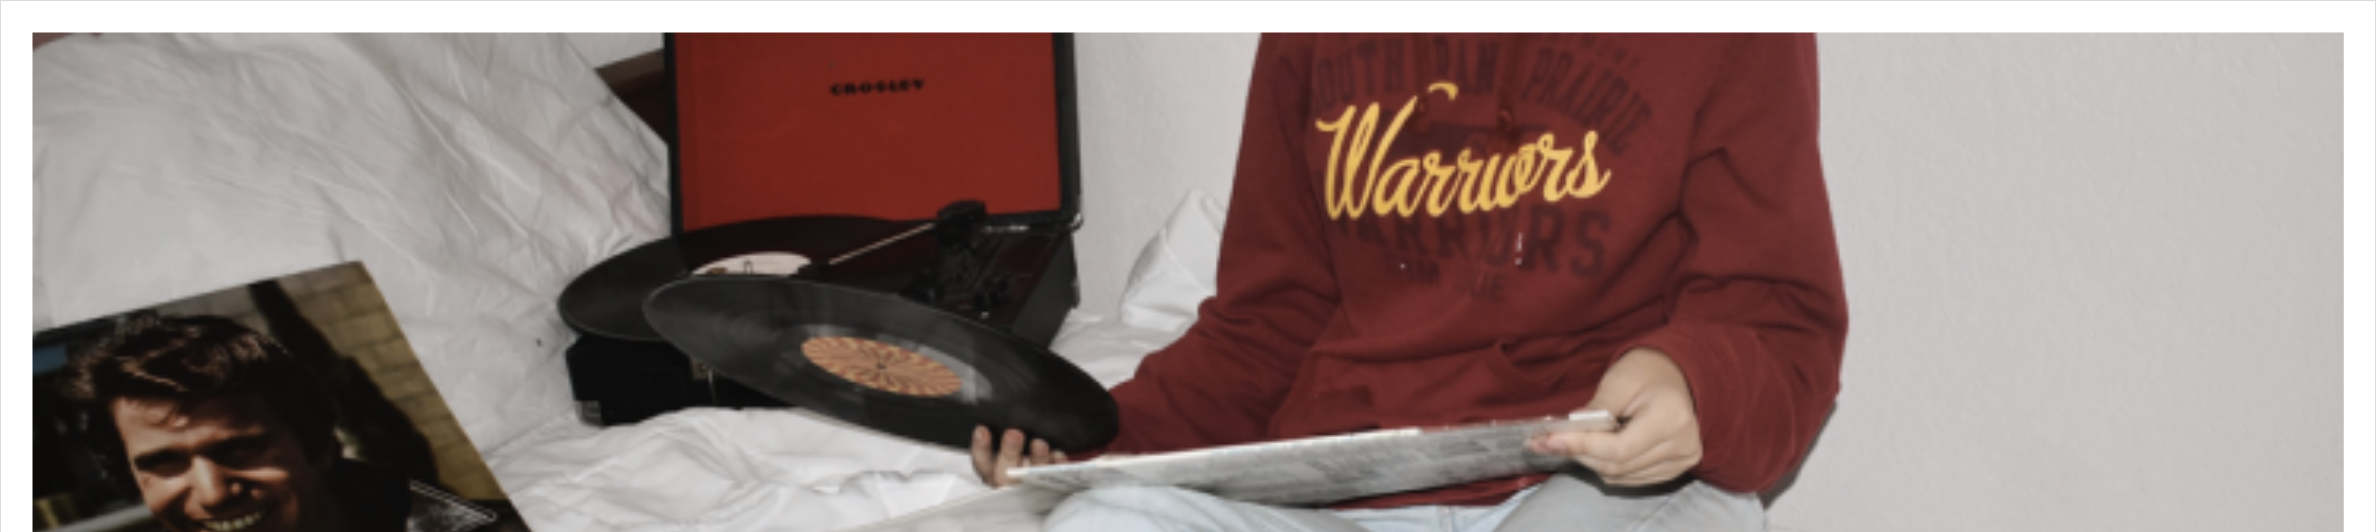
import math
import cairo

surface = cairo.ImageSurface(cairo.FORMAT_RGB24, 2376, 532)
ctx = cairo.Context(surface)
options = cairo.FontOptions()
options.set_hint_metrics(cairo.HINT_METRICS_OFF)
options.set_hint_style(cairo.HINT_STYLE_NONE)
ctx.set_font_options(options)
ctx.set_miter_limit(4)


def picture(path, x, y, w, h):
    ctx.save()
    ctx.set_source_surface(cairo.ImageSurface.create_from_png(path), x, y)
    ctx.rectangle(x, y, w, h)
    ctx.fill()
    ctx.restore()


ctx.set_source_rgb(1, 1, 1)
ctx.paint()
ctx.rectangle(0.5, 0.5, 2375, 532)
ctx.set_source_rgb(0.863, 0.863, 0.871)
ctx.set_line_width(1)
ctx.stroke()
picture("img1.png", 32, 32, 2312, 500)
surface.write_to_png("page.png")
